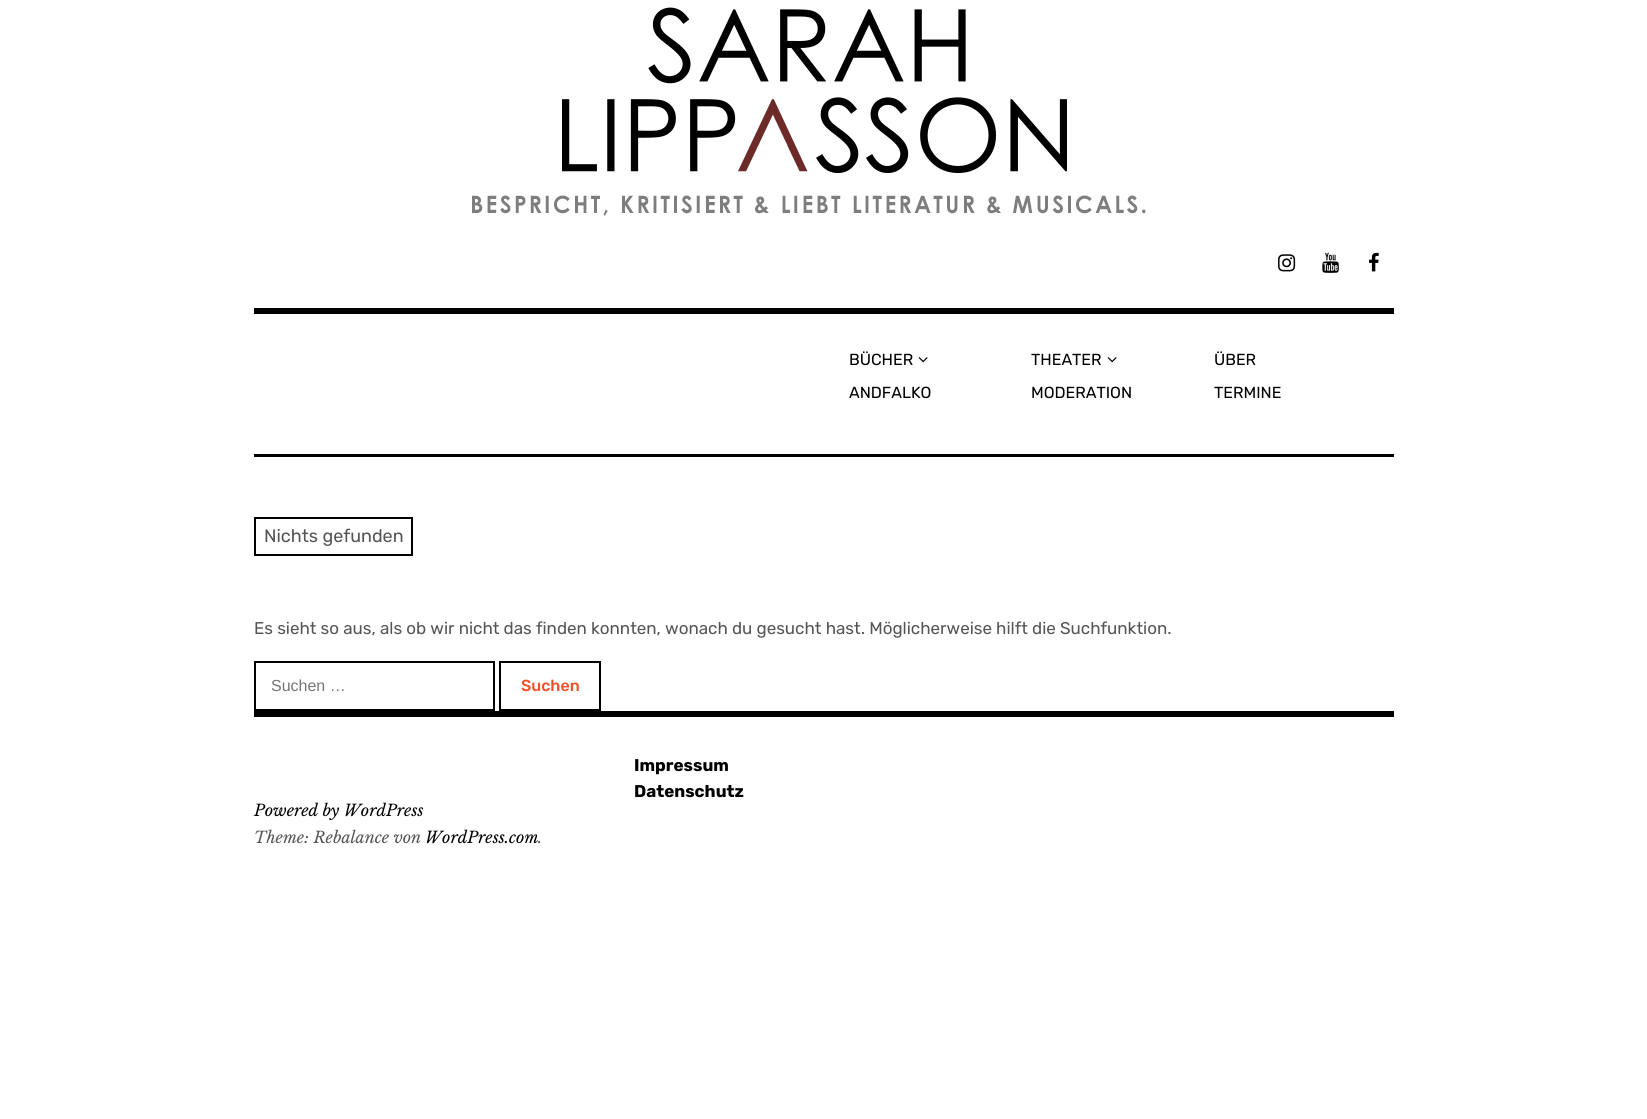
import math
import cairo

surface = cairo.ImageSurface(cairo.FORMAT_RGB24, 1647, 1119)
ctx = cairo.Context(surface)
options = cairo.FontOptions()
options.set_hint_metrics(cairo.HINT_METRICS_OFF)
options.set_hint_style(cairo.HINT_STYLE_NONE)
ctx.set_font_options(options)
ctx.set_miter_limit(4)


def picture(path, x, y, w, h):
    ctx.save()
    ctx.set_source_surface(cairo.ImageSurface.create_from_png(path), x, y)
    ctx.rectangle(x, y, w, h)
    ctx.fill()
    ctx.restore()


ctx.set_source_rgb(1, 1, 1)
ctx.paint()
picture("img1.png", 472, 7, 674, 209)
ctx.set_source_rgb(0, 0, 0)
ctx.rectangle(254, 308, 1140, 6)
ctx.fill()
picture("img2.png", 1278, 254, 18, 18)
picture("img3.png", 1322, 252, 17, 21)
picture("img4.png", 1369, 252, 10, 20)
ctx.select_font_face("Rubik")
ctx.set_font_size(16)
ctx.move_to(849, 365)
ctx.show_text("BÜCHER")
picture("img5.png", 918, 357, 10, 6)
ctx.move_to(849, 398)
ctx.show_text("ANDFALKO")
ctx.move_to(1031, 365)
ctx.show_text("THEATER")
picture("img5.png", 1107, 357, 10, 6)
ctx.move_to(1031, 398)
ctx.show_text("MODERATION")
ctx.move_to(1214, 365)
ctx.show_text("ÜBER")
ctx.move_to(1214, 398)
ctx.show_text("TERMINE")
ctx.rectangle(254, 454, 1140, 3)
ctx.fill()
ctx.rectangle(255, 518, 157, 37)
ctx.stroke()
ctx.set_font_size(18)
ctx.set_source_rgb(0.333, 0.333, 0.333)
ctx.move_to(264, 542)
ctx.show_text("Nichts gefunden")
ctx.set_font_size(17)
ctx.move_to(254, 634)
ctx.show_text("Es sieht so aus, als ob wir nicht das finden konnten, wonach du gesucht hast. Möglicherweise hilft die Suchfunktion.")
ctx.rectangle(255, 662, 239, 48)
ctx.set_source_rgb(0, 0, 0)
ctx.stroke()
ctx.select_font_face("Liberation Sans")
ctx.set_font_size(16)
ctx.set_source_rgb(0.459, 0.459, 0.459)
ctx.move_to(271, 691)
ctx.show_text("Suchen …")
ctx.rectangle(500, 662, 100, 48)
ctx.set_source_rgb(0, 0, 0)
ctx.stroke()
ctx.select_font_face("Rubik Medium")
ctx.set_source_rgb(0.953, 0.314, 0.161)
ctx.move_to(521, 691)
ctx.show_text("Suchen")
ctx.select_font_face("Rubik", cairo.FONT_SLANT_NORMAL, cairo.FONT_WEIGHT_BOLD)
ctx.set_font_size(17)
ctx.set_source_rgb(0, 0, 0)
ctx.move_to(634, 771)
ctx.show_text("Impressum")
ctx.move_to(634, 797)
ctx.show_text("Datenschutz")
ctx.rectangle(254, 711, 1140, 6)
ctx.fill()
ctx.select_font_face("Libre Baskerville", cairo.FONT_SLANT_ITALIC)
ctx.set_font_size(16)
ctx.move_to(254, 816)
ctx.show_text("Powered by WordPress")
ctx.set_source_rgb(0.333, 0.333, 0.333)
ctx.move_to(254, 843)
ctx.show_text("Theme: Rebalance von")
ctx.set_source_rgb(0, 0, 0)
ctx.move_to(425, 843)
ctx.show_text("WordPress.com")
ctx.set_source_rgb(0.333, 0.333, 0.333)
ctx.move_to(538, 843)
ctx.show_text(".")
surface.write_to_png("page.png")
